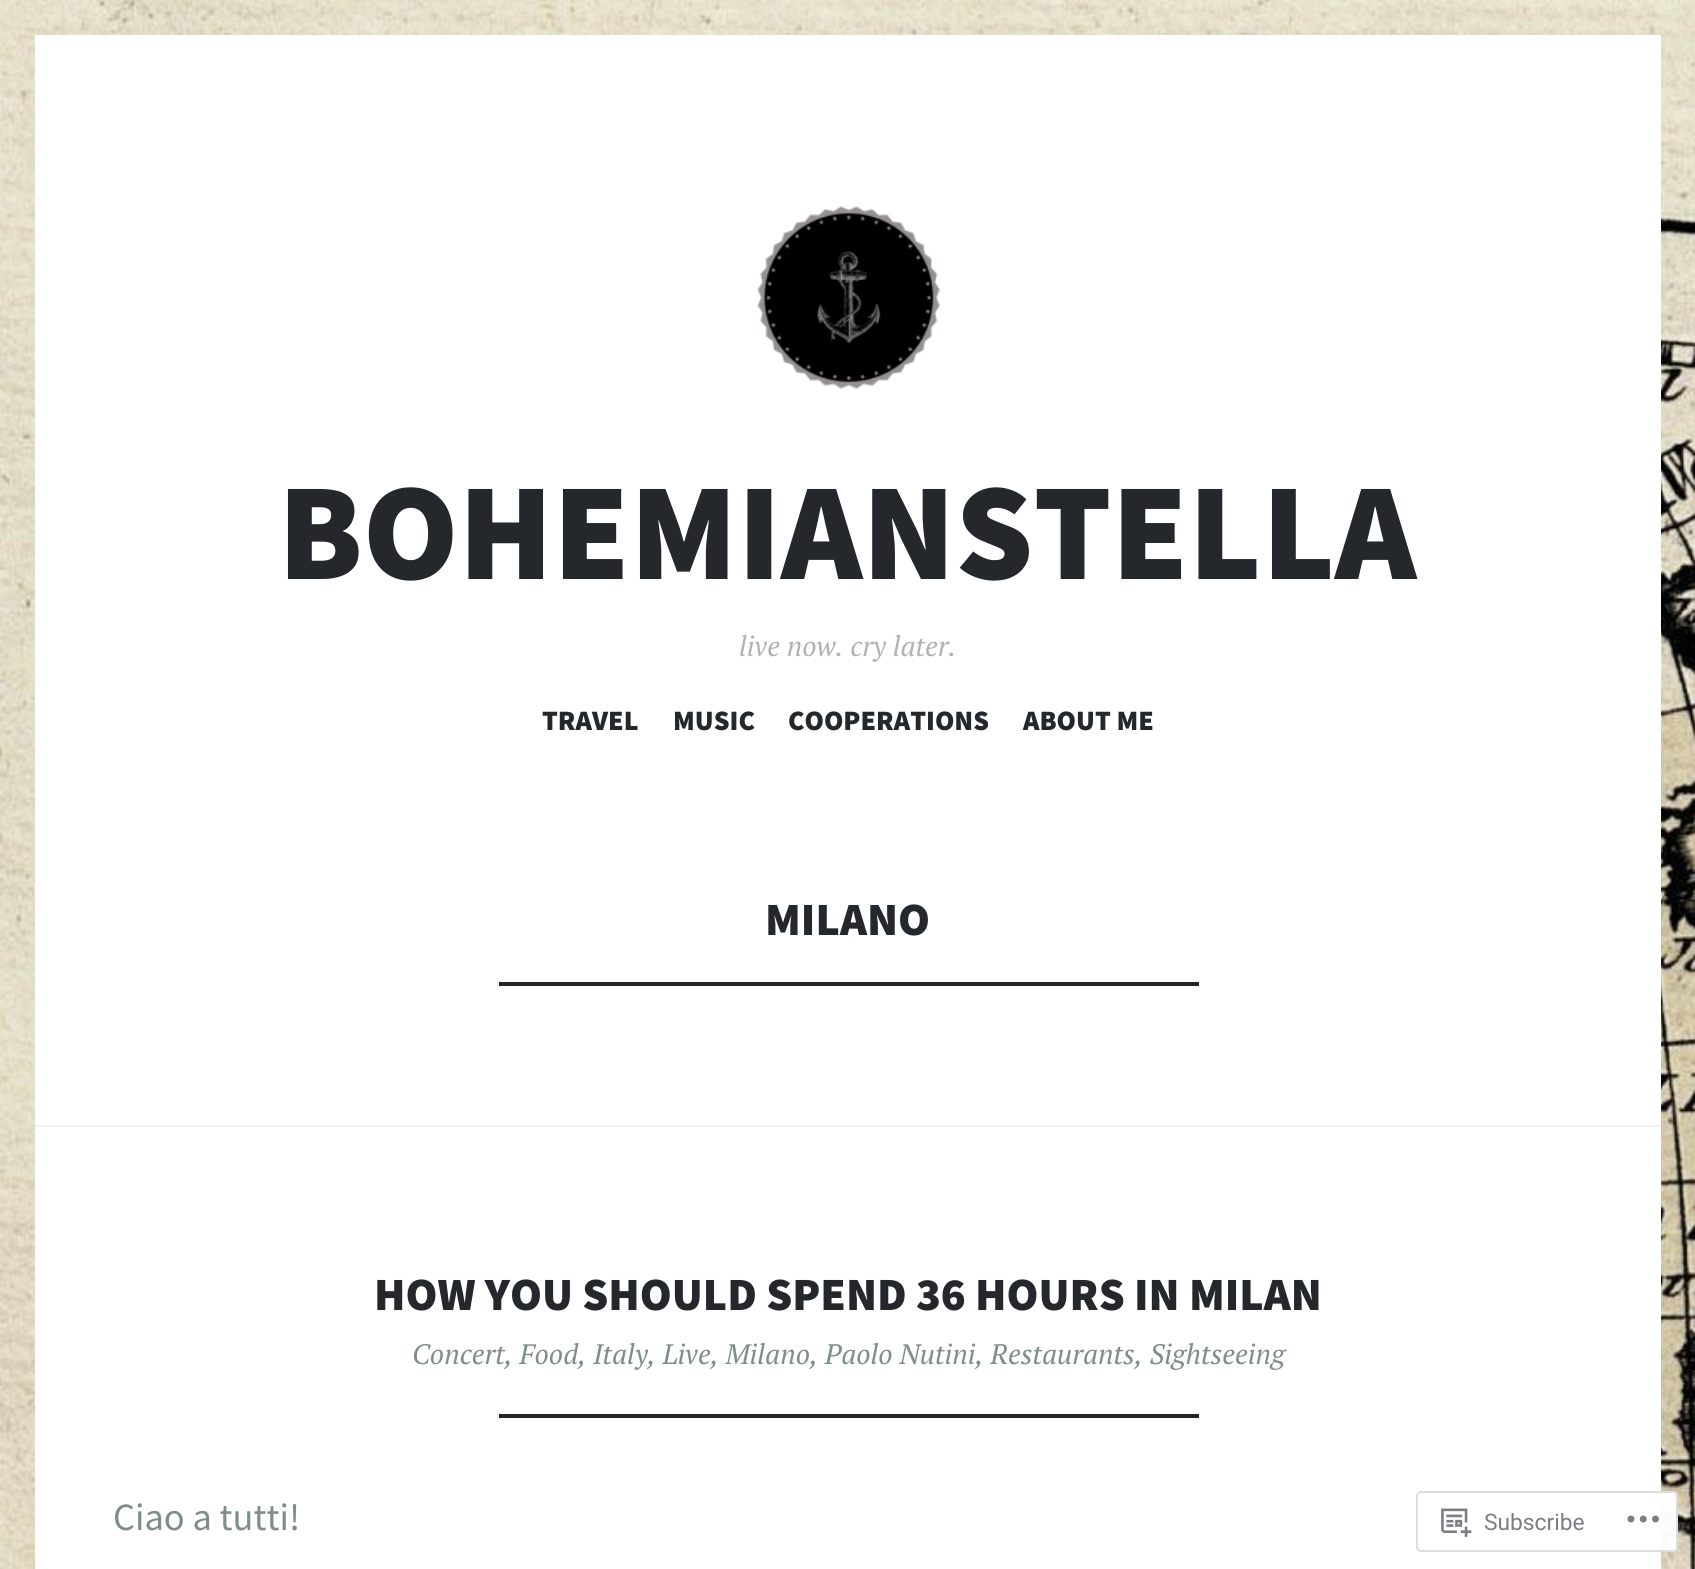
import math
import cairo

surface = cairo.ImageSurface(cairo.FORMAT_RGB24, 1695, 1569)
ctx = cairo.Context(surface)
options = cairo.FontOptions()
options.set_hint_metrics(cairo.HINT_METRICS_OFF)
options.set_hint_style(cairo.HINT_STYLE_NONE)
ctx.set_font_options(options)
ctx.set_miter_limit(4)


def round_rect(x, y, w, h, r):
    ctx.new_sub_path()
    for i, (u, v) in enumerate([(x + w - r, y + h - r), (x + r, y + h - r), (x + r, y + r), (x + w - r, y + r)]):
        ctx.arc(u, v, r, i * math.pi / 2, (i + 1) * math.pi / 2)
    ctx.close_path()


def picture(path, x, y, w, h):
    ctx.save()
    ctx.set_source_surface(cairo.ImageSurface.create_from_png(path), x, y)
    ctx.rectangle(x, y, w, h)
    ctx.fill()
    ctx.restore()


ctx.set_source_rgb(1, 1, 1)
ctx.paint()
picture("img1.png", 0, 0, 1695, 1569)
ctx.set_source_rgb(1, 1, 1)
ctx.rectangle(35, 35, 1626, 1534)
ctx.fill()
picture("img2.png", 757, 206, 184, 183)
ctx.select_font_face("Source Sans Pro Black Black")
ctx.set_font_size(138.5)
ctx.set_source_rgb(0.141, 0.157, 0.176)
ctx.move_to(278, 579)
ctx.show_text("BOHEMIANSTELLA")
ctx.select_font_face("PT Serif", cairo.FONT_SLANT_ITALIC)
ctx.set_font_size(28.1)
ctx.set_source_rgb(0.694, 0.698, 0.702)
ctx.move_to(739, 656)
ctx.show_text("live now. cry later.")
ctx.select_font_face("Source Sans Pro Black Black")
ctx.set_source_rgb(0.141, 0.157, 0.176)
ctx.move_to(542, 730)
ctx.show_text("TRAVEL")
ctx.move_to(673, 730)
ctx.show_text("MUSIC")
ctx.move_to(788, 730)
ctx.show_text("COOPERATIONS")
ctx.move_to(1023, 730)
ctx.show_text("ABOUT ME")
ctx.set_font_size(46.2)
ctx.move_to(765, 935)
ctx.show_text("MILANO")
ctx.rectangle(499, 982, 700, 4)
ctx.fill()
ctx.set_source_rgb(0.945, 0.949, 0.953)
ctx.rectangle(35, 1125, 1626, 2)
ctx.fill()
ctx.set_source_rgb(0.141, 0.157, 0.176)
ctx.move_to(374, 1310)
ctx.show_text("HOW YOU SHOULD SPEND 36 HOURS IN MILAN")
ctx.select_font_face("PT Serif", cairo.FONT_SLANT_ITALIC)
ctx.set_font_size(28.1)
ctx.set_source_rgb(0.498, 0.553, 0.549)
ctx.move_to(412, 1364)
ctx.show_text("Concert, Food, Italy, Live, Milano, Paolo Nutini, Restaurants, Sightseeing")
ctx.set_source_rgb(0.141, 0.157, 0.176)
ctx.rectangle(499, 1414, 700, 4)
ctx.fill()
ctx.select_font_face("Source Sans Pro")
ctx.set_font_size(38.5)
ctx.set_source_rgb(0.498, 0.553, 0.549)
ctx.move_to(113, 1530)
ctx.show_text("Ciao a tutti!")
ctx.set_source_rgba(1, 1, 1, 0.98)
round_rect(1416, 1491, 262, 61, 5)
ctx.fill()
round_rect(1417, 1492, 260, 59, 4)
ctx.set_source_rgba(0.863, 0.863, 0.871, 0.98)
ctx.stroke()
picture("img3.png", 1441, 1508, 31, 29)
ctx.select_font_face("Roboto")
ctx.set_font_size(22.75)
ctx.set_source_rgb(0.482, 0.498, 0.522)
ctx.move_to(1484, 1530)
ctx.show_text("Subscribe")
picture("img4.png", 1627, 1515, 32, 8)
surface.write_to_png("page.png")
